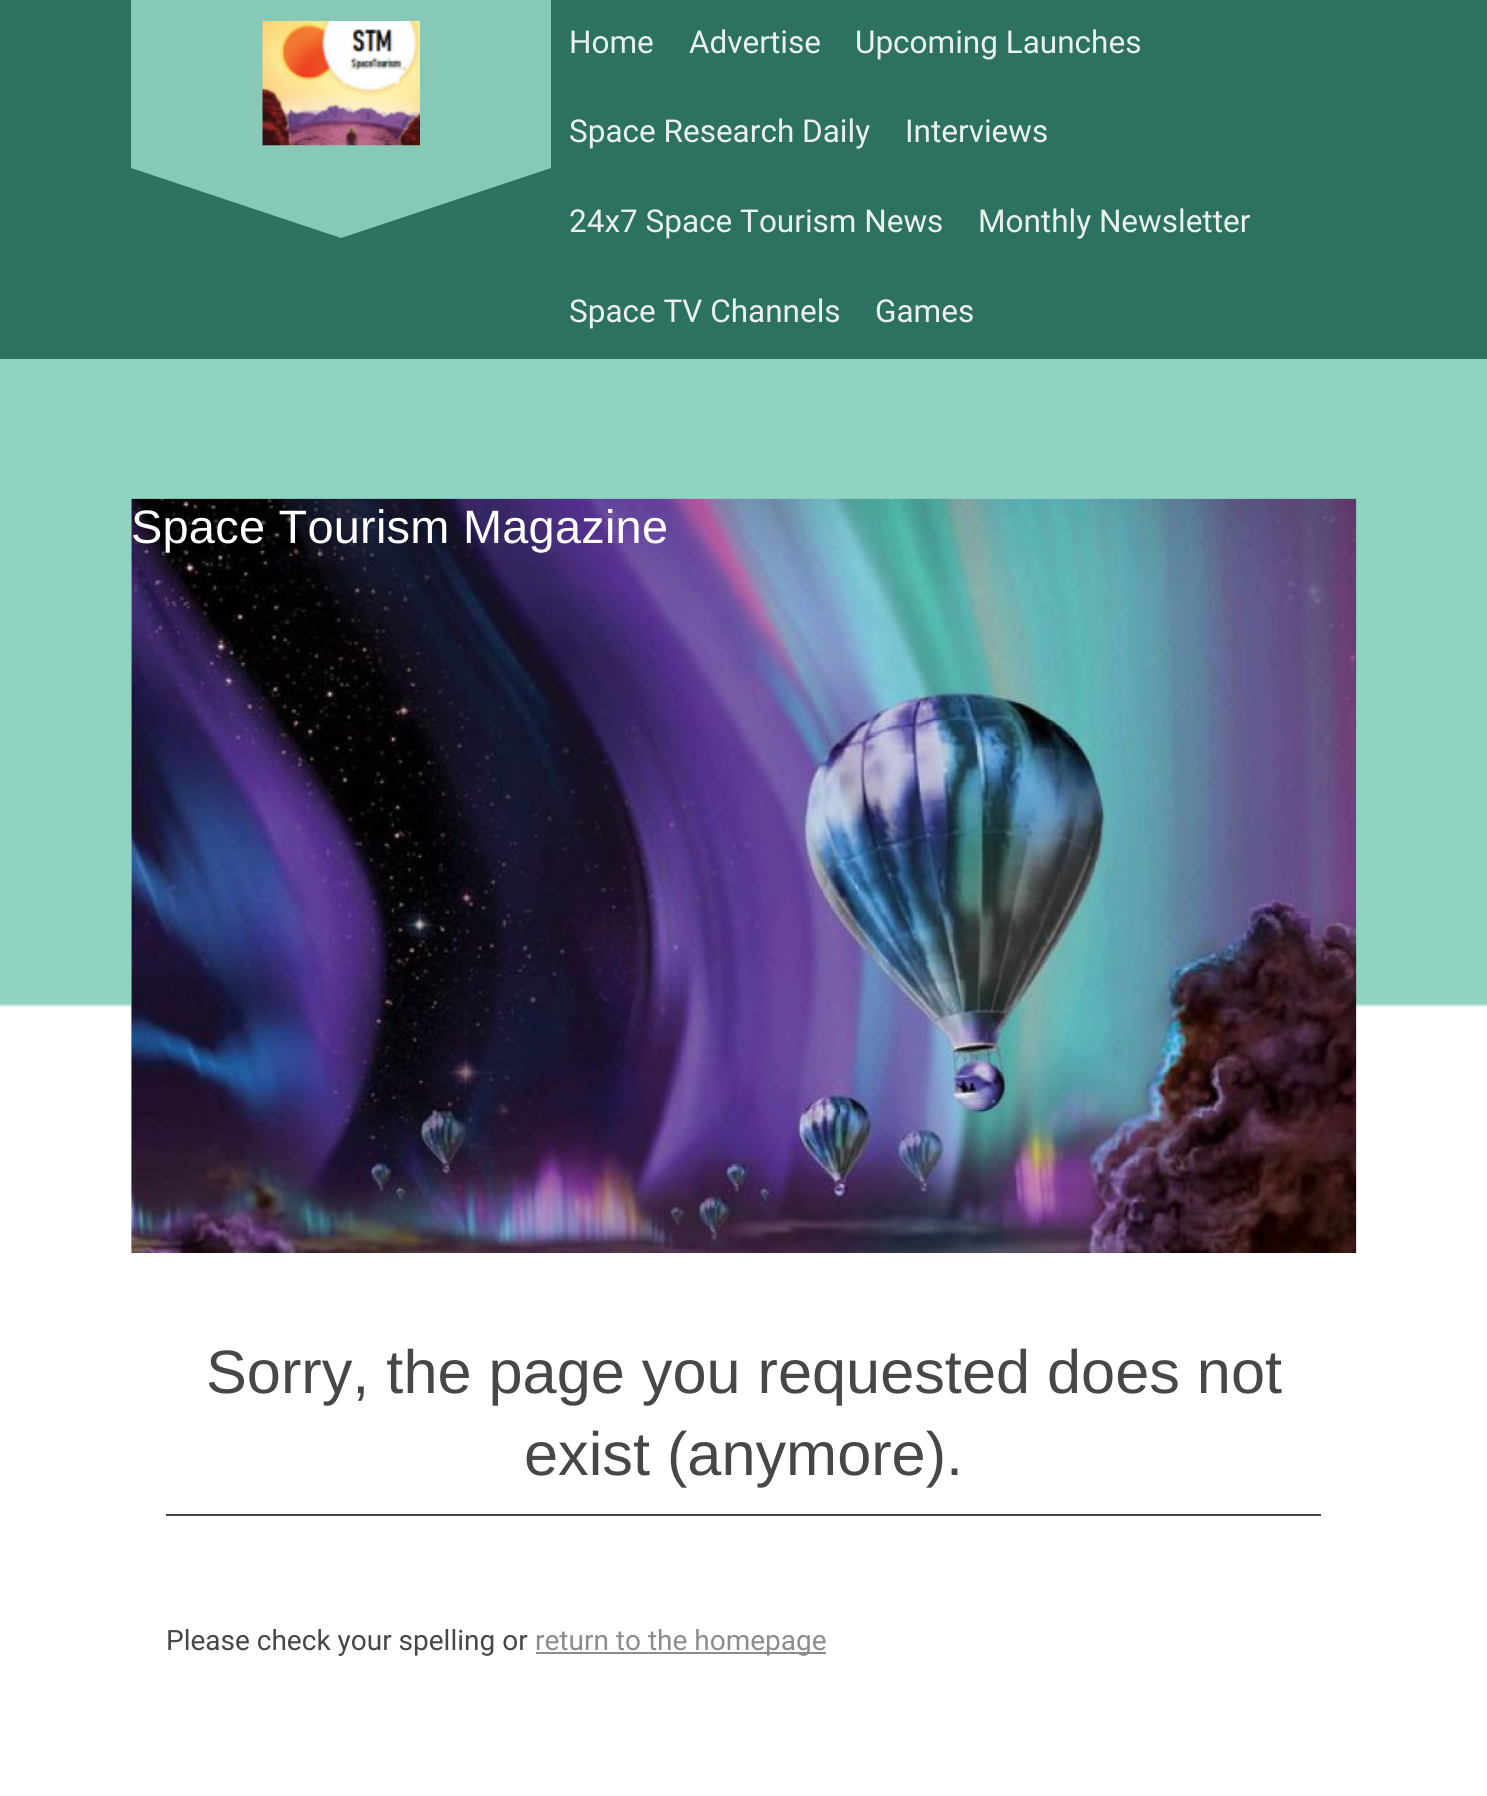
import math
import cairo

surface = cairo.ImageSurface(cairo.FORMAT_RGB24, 1487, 1796)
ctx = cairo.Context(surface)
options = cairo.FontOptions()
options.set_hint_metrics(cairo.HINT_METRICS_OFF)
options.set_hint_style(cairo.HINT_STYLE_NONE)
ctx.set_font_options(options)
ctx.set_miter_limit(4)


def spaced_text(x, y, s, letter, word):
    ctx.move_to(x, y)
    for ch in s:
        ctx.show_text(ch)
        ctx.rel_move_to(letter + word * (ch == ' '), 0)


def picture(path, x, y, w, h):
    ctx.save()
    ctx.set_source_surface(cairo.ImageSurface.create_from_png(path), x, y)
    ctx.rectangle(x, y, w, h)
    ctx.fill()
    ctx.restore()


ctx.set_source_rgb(0.565, 0.827, 0.761)
ctx.paint()
picture("img1.png", 0, 1004, 1487, 792)
ctx.set_source_rgb(0.176, 0.447, 0.376)
ctx.rectangle(0, 0, 1487, 359)
ctx.fill()
ctx.set_source_rgb(0.525, 0.788, 0.722)
ctx.rectangle(131, 0, 420, 168)
ctx.fill()
picture("img2.png", 262, 21, 158, 125)
ctx.new_path()
ctx.move_to(131, 168)
ctx.line_to(551, 168)
ctx.line_to(341, 238)
ctx.close_path()
ctx.fill()
ctx.select_font_face("Roboto")
ctx.set_font_size(31.5)
ctx.set_source_rgb(0.918, 0.945, 0.937)
ctx.move_to(569, 53)
ctx.show_text("Home")
ctx.move_to(689, 53)
ctx.show_text("Advertise")
ctx.move_to(855, 53)
ctx.show_text("Upcoming Launches")
ctx.move_to(569, 142)
ctx.show_text("Space Research Daily")
ctx.move_to(905, 142)
ctx.show_text("Interviews")
ctx.move_to(569, 232)
ctx.show_text("24x7 Space Tourism News")
ctx.move_to(978, 232)
ctx.show_text("Monthly Newsletter")
ctx.move_to(569, 322)
ctx.show_text("Space TV Channels")
ctx.move_to(875, 322)
ctx.show_text("Games")
picture("img3.png", 131, 498, 1226, 755)
ctx.set_source_rgb(0.933, 0.933, 0.933)
ctx.rectangle(131, 499, 1, 754)
ctx.fill()
picture("img4.png", 131, 498, 1226, 755)
ctx.select_font_face("Liberation Sans")
ctx.set_font_size(46.9)
ctx.set_source_rgb(1, 1, 1)
spaced_text(131, 543, "Space Tourism Magazine", 0.25, 0)
ctx.set_source_rgb(0.278, 0.278, 0.278)
ctx.rectangle(166, 1514, 1155, 2)
ctx.fill()
ctx.set_font_size(61.25)
ctx.move_to(206, 1393)
ctx.show_text("Sorry, the page you requested does not")
ctx.move_to(524, 1475)
ctx.show_text("exist (anymore).")
ctx.select_font_face("Roboto")
ctx.set_font_size(28)
ctx.move_to(166, 1650)
ctx.show_text("Please check your spelling or")
ctx.set_source_rgb(0.549, 0.549, 0.549)
ctx.rectangle(536, 1652, 290, 2)
ctx.fill()
ctx.move_to(535, 1650)
ctx.show_text("return to the homepage")
surface.write_to_png("page.png")
